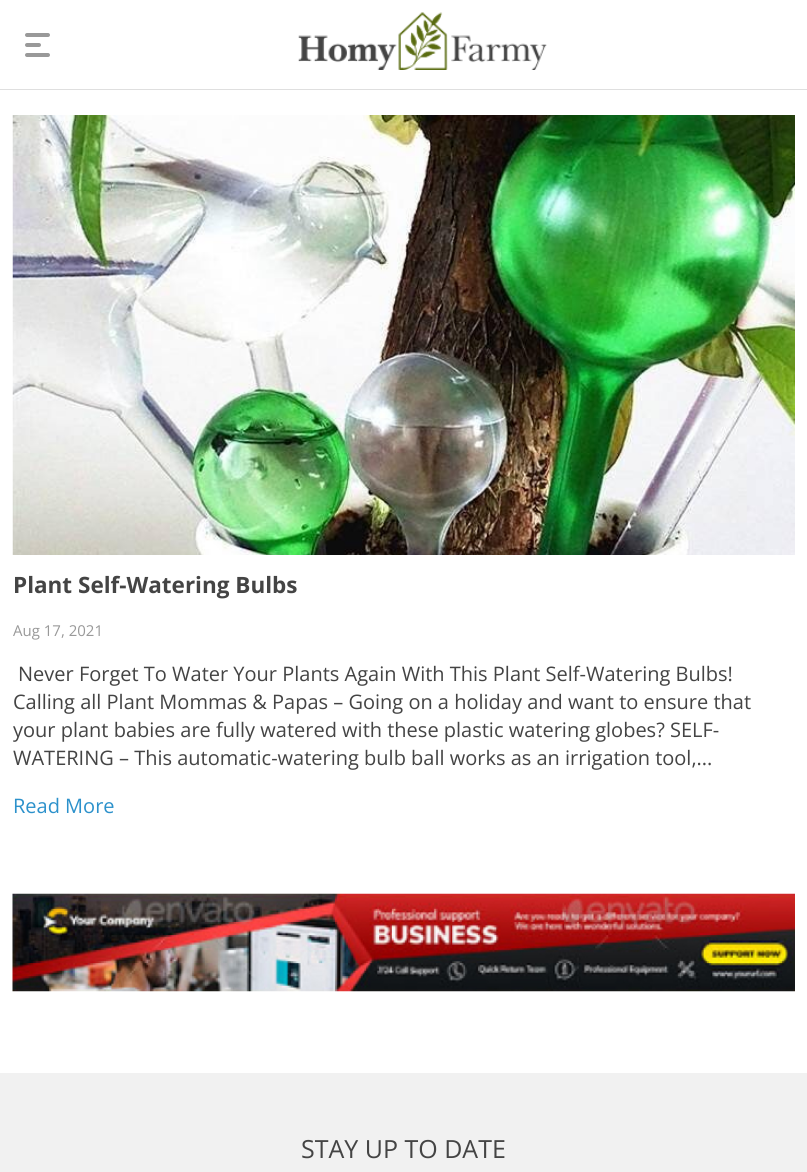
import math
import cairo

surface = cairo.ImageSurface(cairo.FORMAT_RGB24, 807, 1172)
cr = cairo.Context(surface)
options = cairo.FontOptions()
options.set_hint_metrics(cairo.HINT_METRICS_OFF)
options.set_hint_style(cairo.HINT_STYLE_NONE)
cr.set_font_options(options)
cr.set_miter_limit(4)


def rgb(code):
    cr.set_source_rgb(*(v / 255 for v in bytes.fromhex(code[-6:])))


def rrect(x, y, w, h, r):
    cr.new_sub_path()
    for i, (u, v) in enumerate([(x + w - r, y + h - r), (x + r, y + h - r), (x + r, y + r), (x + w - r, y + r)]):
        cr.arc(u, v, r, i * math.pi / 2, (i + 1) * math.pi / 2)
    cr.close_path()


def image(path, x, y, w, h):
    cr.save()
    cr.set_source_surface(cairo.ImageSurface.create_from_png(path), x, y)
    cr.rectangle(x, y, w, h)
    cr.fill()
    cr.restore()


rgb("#ffffff")
cr.paint()
rgb("#dfdfdf")
cr.rectangle(0, 89, 807, 1)
cr.fill()
rgb("#999999")
rrect(25, 33, 25, 4, 2)
cr.fill()
rrect(25, 43, 16, 4, 2)
cr.fill()
rrect(25, 53, 25, 4, 2)
cr.fill()
image("img/1.png", 298, 12, 249, 58)
image("img/2.png", 12, 115, 783, 440)
image("img/3.png", 12, 893, 783, 99)
rgb("#f1f1f1")
cr.rectangle(0, 1073, 807, 99)
cr.fill()
cr.select_font_face("Open Sans", cairo.FONT_SLANT_NORMAL, cairo.FONT_WEIGHT_BOLD)
cr.set_font_size(22.5)
rgb("#444444")
cr.move_to(13, 593)
cr.show_text("Plant Self-Watering Bulbs")
cr.select_font_face("Open Sans")
cr.set_font_size(15)
rgb("#999999")
cr.move_to(13, 636)
cr.show_text("Aug 17, 2021")
cr.set_font_size(20)
rgb("#444444")
cr.move_to(18, 681)
cr.show_text("Never Forget To Water Your Plants Again With This Plant Self-Watering Bulbs!")
cr.move_to(13, 709)
cr.show_text("Calling all Plant Mommas & Papas – Going on a holiday and want to ensure that")
cr.save()
cr.rectangle(13, 660, 782, 113)
cr.clip()
cr.move_to(13, 737)
cr.show_text("your plant babies are fully watered with these plastic watering globes? SELF-")
cr.restore()
cr.move_to(13, 765)
cr.show_text("WATERING – This automatic-watering bulb ball works as an irrigation tool,...")
rgb("#2c91cb")
cr.move_to(13, 813)
cr.show_text("Read More")
cr.set_font_size(25)
rgb("#444444")
cr.move_to(301, 1158)
cr.show_text("STAY UP TO DATE")
surface.write_to_png("page.png")
